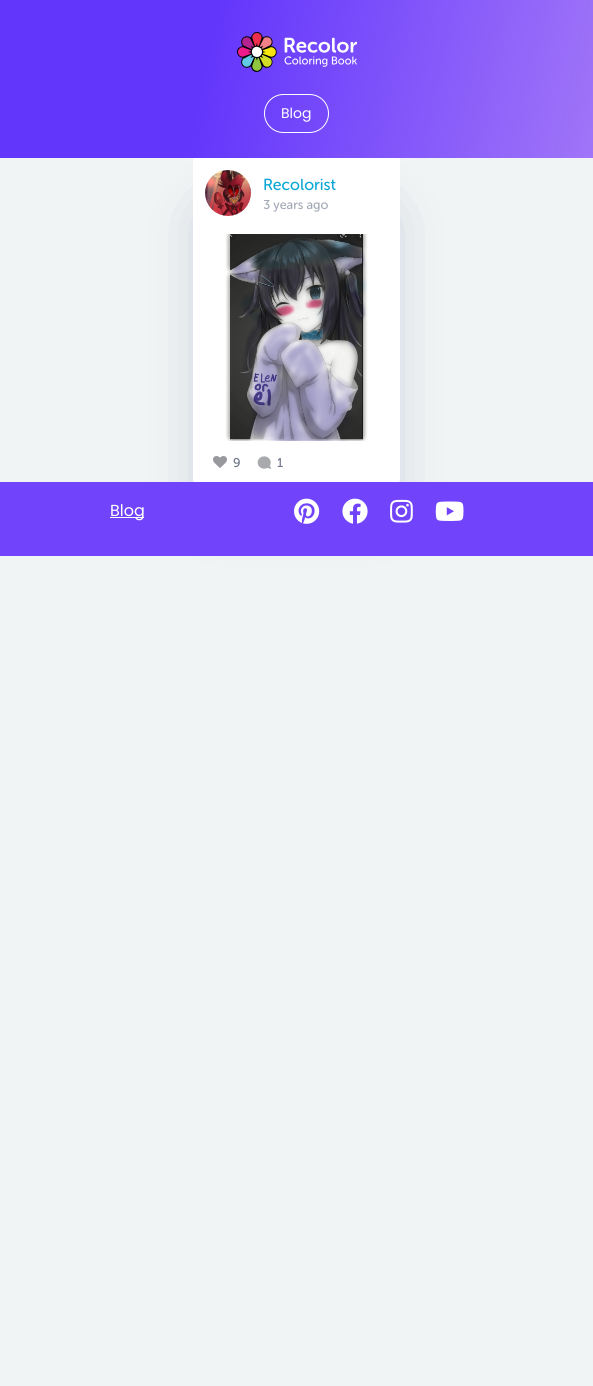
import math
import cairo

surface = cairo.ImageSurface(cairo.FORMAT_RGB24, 593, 1386)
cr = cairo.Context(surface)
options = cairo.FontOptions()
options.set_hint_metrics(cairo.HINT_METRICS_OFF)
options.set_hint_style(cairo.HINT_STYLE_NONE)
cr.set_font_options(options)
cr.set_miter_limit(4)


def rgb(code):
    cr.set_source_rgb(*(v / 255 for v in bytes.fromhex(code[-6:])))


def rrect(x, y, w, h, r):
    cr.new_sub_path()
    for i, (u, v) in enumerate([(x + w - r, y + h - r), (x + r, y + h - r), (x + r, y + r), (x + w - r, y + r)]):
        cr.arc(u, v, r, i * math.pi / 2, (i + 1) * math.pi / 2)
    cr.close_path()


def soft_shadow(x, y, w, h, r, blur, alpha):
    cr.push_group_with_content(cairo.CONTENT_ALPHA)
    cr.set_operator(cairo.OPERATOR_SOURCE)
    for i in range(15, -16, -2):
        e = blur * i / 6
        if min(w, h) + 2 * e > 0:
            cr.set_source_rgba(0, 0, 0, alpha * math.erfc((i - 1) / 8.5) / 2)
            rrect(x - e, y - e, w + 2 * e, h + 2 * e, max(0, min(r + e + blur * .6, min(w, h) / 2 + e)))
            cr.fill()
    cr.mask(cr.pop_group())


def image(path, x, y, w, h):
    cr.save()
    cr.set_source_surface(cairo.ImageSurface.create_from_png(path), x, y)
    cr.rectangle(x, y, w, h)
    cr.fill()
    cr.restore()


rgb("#f1f4f5")
cr.paint()
gradient = cairo.LinearGradient(-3.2, 15, 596, 143)
gradient.add_color_stop_rgba(0.35, 0.388, 0.212, 0.988, 1)
gradient.add_color_stop_rgba(1, 0.627, 0.459, 0.973, 1)
cr.set_source(gradient)
cr.rectangle(0, 0, 593, 158)
cr.fill()
image("img/1.png", 237, 32, 120, 40)
rgb("#0e3365")
soft_shadow(213, 218, 167, 284, 0, 30, 0.3)
rrect(264.5, 94.5, 64, 38, 19)
rgb("#ffffff")
cr.set_line_width(1)
cr.stroke()
rrect(193, 158, 207, 324, 2)
cr.fill()
image("img/2.png", 205, 170, 46, 46)
image("img/3.png", 225, 234, 143, 207)
image("img/4.png", 213, 456, 14, 12)
image("img/5.png", 257, 456, 14, 13)
rgb("#7144fb")
cr.rectangle(0, 482, 593, 74)
cr.fill()
rgb("#ffffff")
cr.rectangle(110, 517, 34, 1)
cr.fill()
image("img/6.png", 294, 498, 26, 26)
image("img/7.png", 342, 498, 26, 26)
image("img/8.png", 390, 499, 23, 24)
image("img/9.png", 435, 501, 29, 20)
cr.select_font_face("Poppins")
cr.set_font_size(14)
cr.move_to(281, 118)
cr.show_text("Blog")
cr.select_font_face("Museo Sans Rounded")
cr.set_font_size(16)
rgb("#0ba7d5")
cr.move_to(263, 190)
cr.show_text("Recolorist")
cr.set_font_size(12.75)
rgb("#a2a8b5")
cr.move_to(263, 209)
cr.show_text("3 years ago")
rgb("#6b7386")
cr.move_to(233, 467)
cr.show_text("9")
cr.move_to(277, 467)
cr.show_text("1")
cr.select_font_face("Poppins")
cr.set_font_size(16)
rgb("#ffffff")
cr.move_to(110, 516)
cr.show_text("Blog")
surface.write_to_png("page.png")
